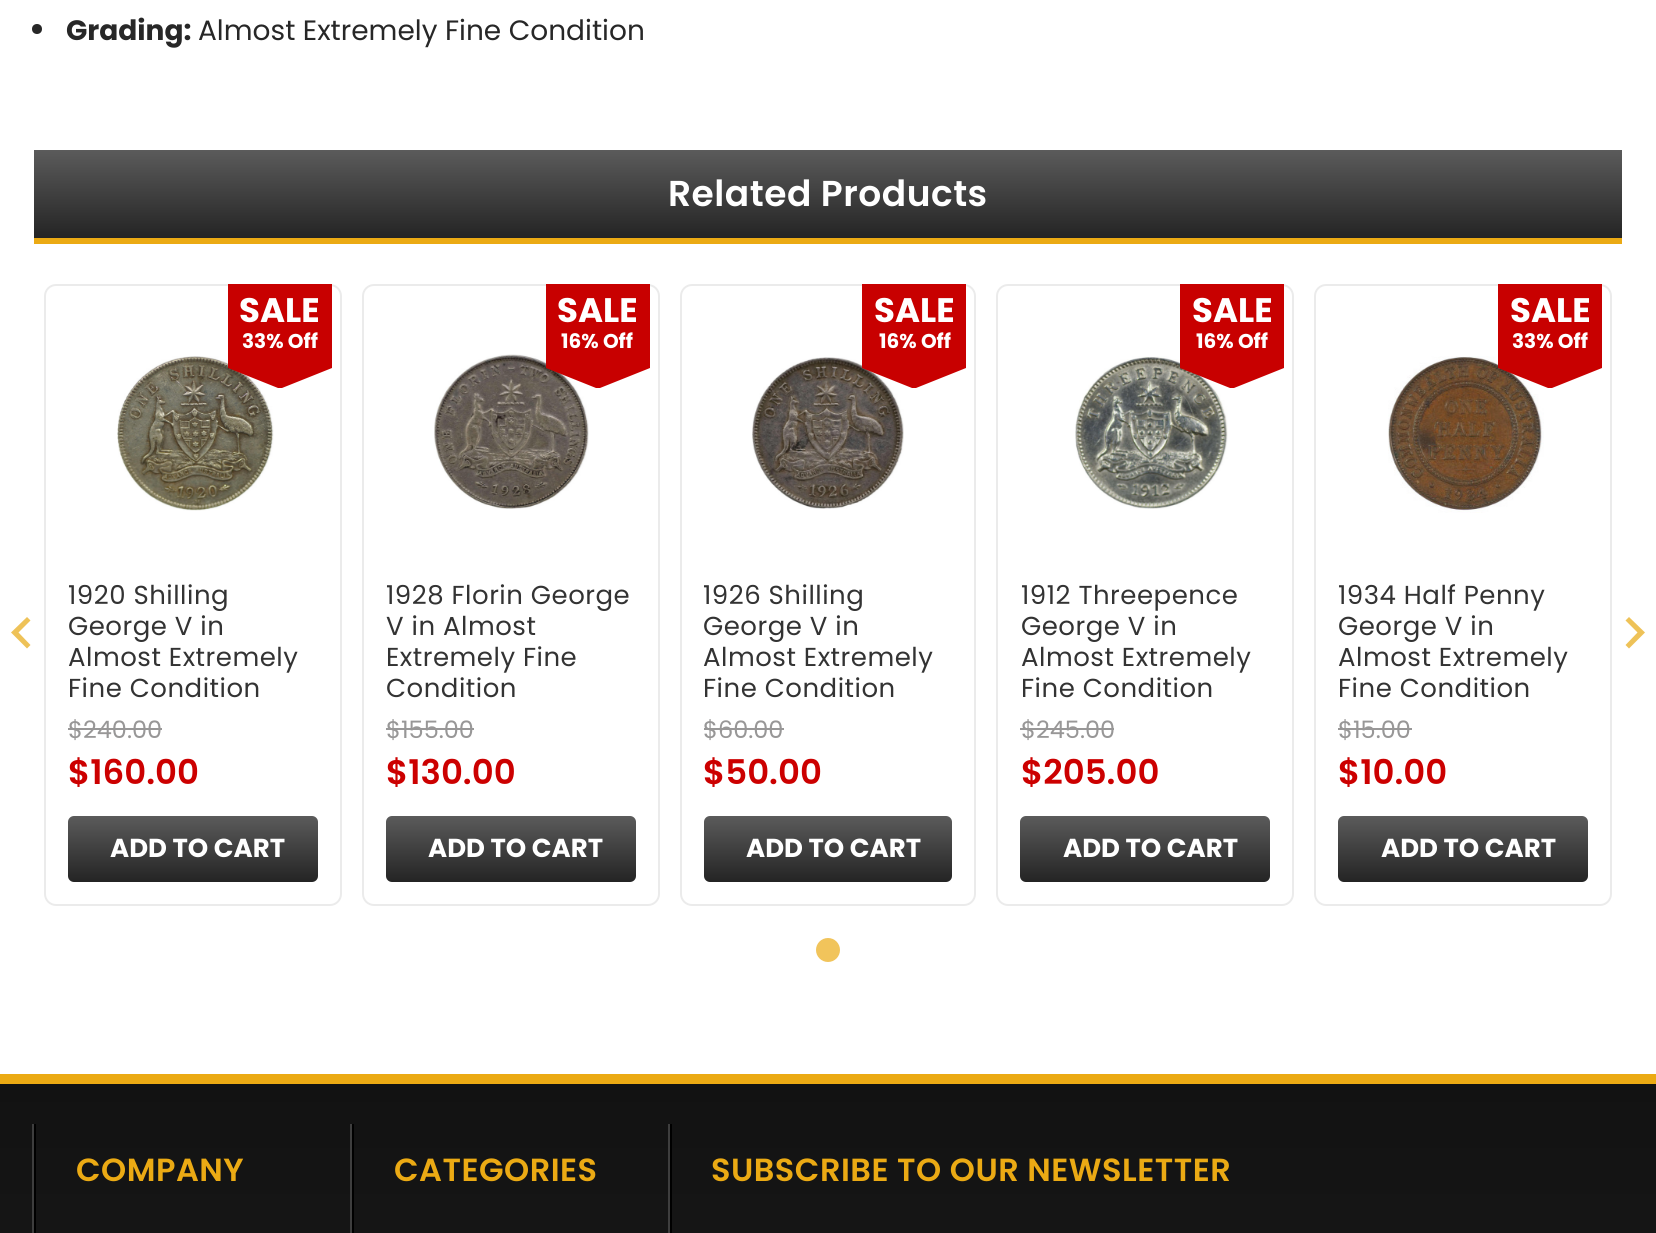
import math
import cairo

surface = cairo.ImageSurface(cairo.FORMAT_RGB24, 1656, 1233)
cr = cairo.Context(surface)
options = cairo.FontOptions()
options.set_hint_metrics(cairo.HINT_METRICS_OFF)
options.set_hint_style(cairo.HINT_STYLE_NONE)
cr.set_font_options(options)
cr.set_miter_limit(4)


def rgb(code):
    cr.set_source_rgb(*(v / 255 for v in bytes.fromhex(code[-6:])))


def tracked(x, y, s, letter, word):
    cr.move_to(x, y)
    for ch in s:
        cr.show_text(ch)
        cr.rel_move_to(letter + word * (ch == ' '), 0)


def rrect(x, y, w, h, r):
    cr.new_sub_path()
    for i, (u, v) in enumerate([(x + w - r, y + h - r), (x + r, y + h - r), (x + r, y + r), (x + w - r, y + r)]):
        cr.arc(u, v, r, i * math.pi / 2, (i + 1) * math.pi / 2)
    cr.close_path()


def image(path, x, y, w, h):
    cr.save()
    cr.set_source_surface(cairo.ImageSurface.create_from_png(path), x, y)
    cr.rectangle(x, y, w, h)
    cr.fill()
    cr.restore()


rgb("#ffffff")
cr.paint()
rgb("#272727")
cr.arc(37, 29, 5, 0, 2 * math.pi)
cr.fill()
gradient = cairo.LinearGradient(828, 150, 828, 238)
gradient.add_color_stop_rgba(0, 0.357, 0.357, 0.357, 1)
gradient.add_color_stop_rgba(1, 0.141, 0.141, 0.141, 1)
cr.set_source(gradient)
cr.rectangle(34, 150, 1588, 88)
cr.fill()
rgb("#ebaa14")
cr.rectangle(34, 238, 1588, 6)
cr.fill()
rrect(45, 285, 296, 620, 11)
rgb("#ebebeb")
cr.stroke()
image("img/1.png", 117, 356, 157, 155)
rgb("#c80000")
cr.rectangle(228, 284, 104, 84)
cr.fill()
cr.new_path()
cr.move_to(228, 368)
cr.line_to(332, 368)
cr.line_to(282, 388)
cr.line_to(278, 388)
cr.close_path()
cr.fill()
rgb("#989797")
cr.rectangle(68, 728, 94, 2)
cr.fill()
gradient = cairo.LinearGradient(193, 816, 193, 882)
gradient.add_color_stop_rgba(0, 0.357, 0.357, 0.357, 1)
gradient.add_color_stop_rgba(1, 0.141, 0.141, 0.141, 1)
cr.set_source(gradient)
rrect(68, 816, 250, 66, 6)
cr.fill()
rrect(363, 285, 296, 620, 11)
rgb("#ebebeb")
cr.stroke()
image("img/2.png", 434, 354, 155, 155)
rgb("#c80000")
cr.rectangle(546, 284, 104, 84)
cr.fill()
cr.new_path()
cr.move_to(546, 368)
cr.line_to(650, 368)
cr.line_to(600, 388)
cr.line_to(596, 388)
cr.close_path()
cr.fill()
rgb("#989797")
cr.rectangle(386, 728, 88, 2)
cr.fill()
gradient = cairo.LinearGradient(511, 816, 511, 882)
gradient.add_color_stop_rgba(0, 0.357, 0.357, 0.357, 1)
gradient.add_color_stop_rgba(1, 0.141, 0.141, 0.141, 1)
cr.set_source(gradient)
rrect(386, 816, 250, 66, 6)
cr.fill()
rrect(681, 285, 294, 620, 11)
rgb("#ebebeb")
cr.stroke()
image("img/3.png", 752, 357, 152, 152)
rgb("#c80000")
cr.rectangle(862, 284, 104, 84)
cr.fill()
cr.new_path()
cr.move_to(862, 368)
cr.line_to(966, 368)
cr.line_to(916, 388)
cr.line_to(912, 388)
cr.close_path()
cr.fill()
rgb("#989797")
cr.rectangle(704, 728, 80, 2)
cr.fill()
gradient = cairo.LinearGradient(828, 816, 828, 882)
gradient.add_color_stop_rgba(0, 0.357, 0.357, 0.357, 1)
gradient.add_color_stop_rgba(1, 0.141, 0.141, 0.141, 1)
cr.set_source(gradient)
rrect(704, 816, 248, 66, 6)
cr.fill()
rrect(997, 285, 296, 620, 11)
rgb("#ebebeb")
cr.stroke()
image("img/4.png", 1075, 356, 153, 153)
rgb("#c80000")
cr.rectangle(1180, 284, 104, 84)
cr.fill()
cr.new_path()
cr.move_to(1180, 368)
cr.line_to(1284, 368)
cr.line_to(1234, 388)
cr.line_to(1230, 388)
cr.close_path()
cr.fill()
rgb("#989797")
cr.rectangle(1020, 728, 94, 2)
cr.fill()
gradient = cairo.LinearGradient(1145, 816, 1145, 882)
gradient.add_color_stop_rgba(0, 0.357, 0.357, 0.357, 1)
gradient.add_color_stop_rgba(1, 0.141, 0.141, 0.141, 1)
cr.set_source(gradient)
rrect(1020, 816, 250, 66, 6)
cr.fill()
rrect(1315, 285, 296, 620, 11)
rgb("#ebebeb")
cr.stroke()
image("img/5.png", 1388, 356, 156, 157)
rgb("#c80000")
cr.rectangle(1498, 284, 104, 84)
cr.fill()
cr.new_path()
cr.move_to(1498, 368)
cr.line_to(1602, 368)
cr.line_to(1552, 388)
cr.line_to(1548, 388)
cr.close_path()
cr.fill()
rgb("#989797")
cr.rectangle(1338, 728, 74, 2)
cr.fill()
gradient = cairo.LinearGradient(1463, 816, 1463, 882)
gradient.add_color_stop_rgba(0, 0.357, 0.357, 0.357, 1)
gradient.add_color_stop_rgba(1, 0.141, 0.141, 0.141, 1)
cr.set_source(gradient)
rrect(1338, 816, 250, 66, 6)
cr.fill()
rgb("#eec258")
cr.new_path()
cr.move_to(27, 617)
cr.line_to(30.5, 620.5)
cr.line_to(18.5, 632.5)
cr.line_to(30.5, 645)
cr.line_to(27, 648.5)
cr.line_to(11, 632.5)
cr.close_path()
cr.fill()
cr.new_path()
cr.move_to(1629, 617)
cr.line_to(1625.5, 620.5)
cr.line_to(1637.5, 632.5)
cr.line_to(1625.5, 645)
cr.line_to(1629, 648.5)
cr.line_to(1645, 632.5)
cr.close_path()
cr.fill()
rgb("#f1c45b")
cr.arc(828, 950, 12, 0, 2 * math.pi)
cr.fill()
gradient = cairo.LinearGradient(828, 1084, 828, 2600)
gradient.add_color_stop_rgba(0, 0.071, 0.071, 0.071, 1)
gradient.add_color_stop_rgba(1, 0.2, 0.2, 0.2, 1)
cr.set_source(gradient)
cr.rectangle(0, 1084, 1656, 149)
cr.fill()
for x, y, w, h, color in [
    (0, 1074, 1656, 10, "#ebaa14"),
    (34, 1124, 2, 109, "#000000"),
    (32, 1124, 2, 109, "#3e3e3e"),
    (352, 1124, 2, 109, "#000000"),
    (350, 1124, 2, 109, "#3e3e3e"),
    (670, 1124, 2, 109, "#000000"),
    (668, 1124, 2, 109, "#3e3e3e"),
]:
    rgb(color)
    cr.rectangle(x, y, w, h)
    cr.fill()
cr.select_font_face("Poppins", cairo.FONT_SLANT_NORMAL, cairo.FONT_WEIGHT_BOLD)
cr.set_font_size(28)
rgb("#272727")
cr.move_to(66, 40)
cr.show_text("Grading:")
cr.select_font_face("Poppins")
cr.move_to(198, 40)
cr.show_text("Almost Extremely Fine Condition")
cr.select_font_face("Poppins SemiBold")
cr.set_font_size(36)
rgb("#ffffff")
tracked(668, 206, "Related Products", 0.5, 0)
cr.select_font_face("Poppins", cairo.FONT_SLANT_NORMAL, cairo.FONT_WEIGHT_BOLD)
cr.set_font_size(34)
cr.move_to(239, 322)
cr.show_text("SALE")
cr.set_font_size(20)
cr.move_to(242, 348)
cr.show_text("33% Off")
cr.select_font_face("Poppins")
cr.set_font_size(26)
rgb("#333333")
for x, y, s in [
    (68, 604, "1920 Shilling"),
    (68, 635, "George V in"),
    (68, 666, "Almost Extremely"),
    (68, 697, "Fine Condition"),
]:
    tracked(x, y, s, 0.5, 0)
cr.set_font_size(24)
rgb("#989797")
cr.move_to(68, 738)
cr.show_text("$240.00")
cr.select_font_face("Poppins SemiBold")
cr.set_font_size(34)
rgb("#cc0000")
cr.move_to(68, 784)
cr.show_text("$160.00")
cr.select_font_face("Poppins", cairo.FONT_SLANT_NORMAL, cairo.FONT_WEIGHT_BOLD)
cr.set_font_size(26)
rgb("#ffffff")
cr.move_to(110, 857)
cr.show_text("ADD TO CART")
cr.set_font_size(34)
cr.move_to(557, 322)
cr.show_text("SALE")
cr.set_font_size(20)
cr.move_to(561, 348)
cr.show_text("16% Off")
cr.select_font_face("Poppins")
cr.set_font_size(26)
rgb("#333333")
for x, y, s in [
    (386, 604, "1928 Florin George"),
    (386, 635, "V in Almost"),
    (386, 666, "Extremely Fine"),
    (386, 697, "Condition"),
]:
    tracked(x, y, s, 0.5, 0)
cr.set_font_size(24)
rgb("#989797")
cr.move_to(386, 738)
cr.show_text("$155.00")
cr.select_font_face("Poppins SemiBold")
cr.set_font_size(34)
rgb("#cc0000")
cr.move_to(386, 784)
cr.show_text("$130.00")
cr.select_font_face("Poppins", cairo.FONT_SLANT_NORMAL, cairo.FONT_WEIGHT_BOLD)
cr.set_font_size(26)
rgb("#ffffff")
cr.move_to(428, 857)
cr.show_text("ADD TO CART")
cr.set_font_size(34)
cr.move_to(874, 322)
cr.show_text("SALE")
cr.set_font_size(20)
cr.move_to(879, 348)
cr.show_text("16% Off")
cr.select_font_face("Poppins")
cr.set_font_size(26)
rgb("#333333")
for x, y, s in [
    (703, 604, "1926 Shilling"),
    (703, 635, "George V in"),
    (703, 666, "Almost Extremely"),
    (703, 697, "Fine Condition"),
]:
    tracked(x, y, s, 0.5, 0)
cr.set_font_size(24)
rgb("#989797")
cr.move_to(703, 738)
cr.show_text("$60.00")
cr.select_font_face("Poppins SemiBold")
cr.set_font_size(34)
rgb("#cc0000")
cr.move_to(703, 784)
cr.show_text("$50.00")
cr.select_font_face("Poppins", cairo.FONT_SLANT_NORMAL, cairo.FONT_WEIGHT_BOLD)
cr.set_font_size(26)
rgb("#ffffff")
cr.move_to(746, 857)
cr.show_text("ADD TO CART")
cr.set_font_size(34)
cr.move_to(1192, 322)
cr.show_text("SALE")
cr.set_font_size(20)
cr.move_to(1196, 348)
cr.show_text("16% Off")
cr.select_font_face("Poppins")
cr.set_font_size(26)
rgb("#333333")
for x, y, s in [
    (1021, 604, "1912 Threepence"),
    (1021, 635, "George V in"),
    (1021, 666, "Almost Extremely"),
    (1021, 697, "Fine Condition"),
]:
    tracked(x, y, s, 0.5, 0)
cr.set_font_size(24)
rgb("#989797")
cr.move_to(1021, 738)
cr.show_text("$245.00")
cr.select_font_face("Poppins SemiBold")
cr.set_font_size(34)
rgb("#cc0000")
cr.move_to(1021, 784)
cr.show_text("$205.00")
cr.select_font_face("Poppins", cairo.FONT_SLANT_NORMAL, cairo.FONT_WEIGHT_BOLD)
cr.set_font_size(26)
rgb("#ffffff")
cr.move_to(1063, 857)
cr.show_text("ADD TO CART")
cr.set_font_size(34)
cr.move_to(1510, 322)
cr.show_text("SALE")
cr.set_font_size(20)
cr.move_to(1512, 348)
cr.show_text("33% Off")
cr.select_font_face("Poppins")
cr.set_font_size(26)
rgb("#333333")
for x, y, s in [
    (1338, 604, "1934 Half Penny"),
    (1338, 635, "George V in"),
    (1338, 666, "Almost Extremely"),
    (1338, 697, "Fine Condition"),
]:
    tracked(x, y, s, 0.5, 0)
cr.set_font_size(24)
rgb("#989797")
cr.move_to(1338, 738)
cr.show_text("$15.00")
cr.select_font_face("Poppins SemiBold")
cr.set_font_size(34)
rgb("#cc0000")
cr.move_to(1338, 784)
cr.show_text("$10.00")
cr.select_font_face("Poppins", cairo.FONT_SLANT_NORMAL, cairo.FONT_WEIGHT_BOLD)
cr.set_font_size(26)
rgb("#ffffff")
cr.move_to(1381, 857)
cr.show_text("ADD TO CART")
cr.select_font_face("Poppins SemiBold")
cr.set_font_size(32)
rgb("#ebaa14")
for x, y, s in [
    (76, 1181, "COMPANY"),
    (394, 1181, "CATEGORIES"),
    (711, 1181, "SUBSCRIBE TO OUR NEWSLETTER"),
]:
    tracked(x, y, s, 0.5, 0)
surface.write_to_png("page.png")
